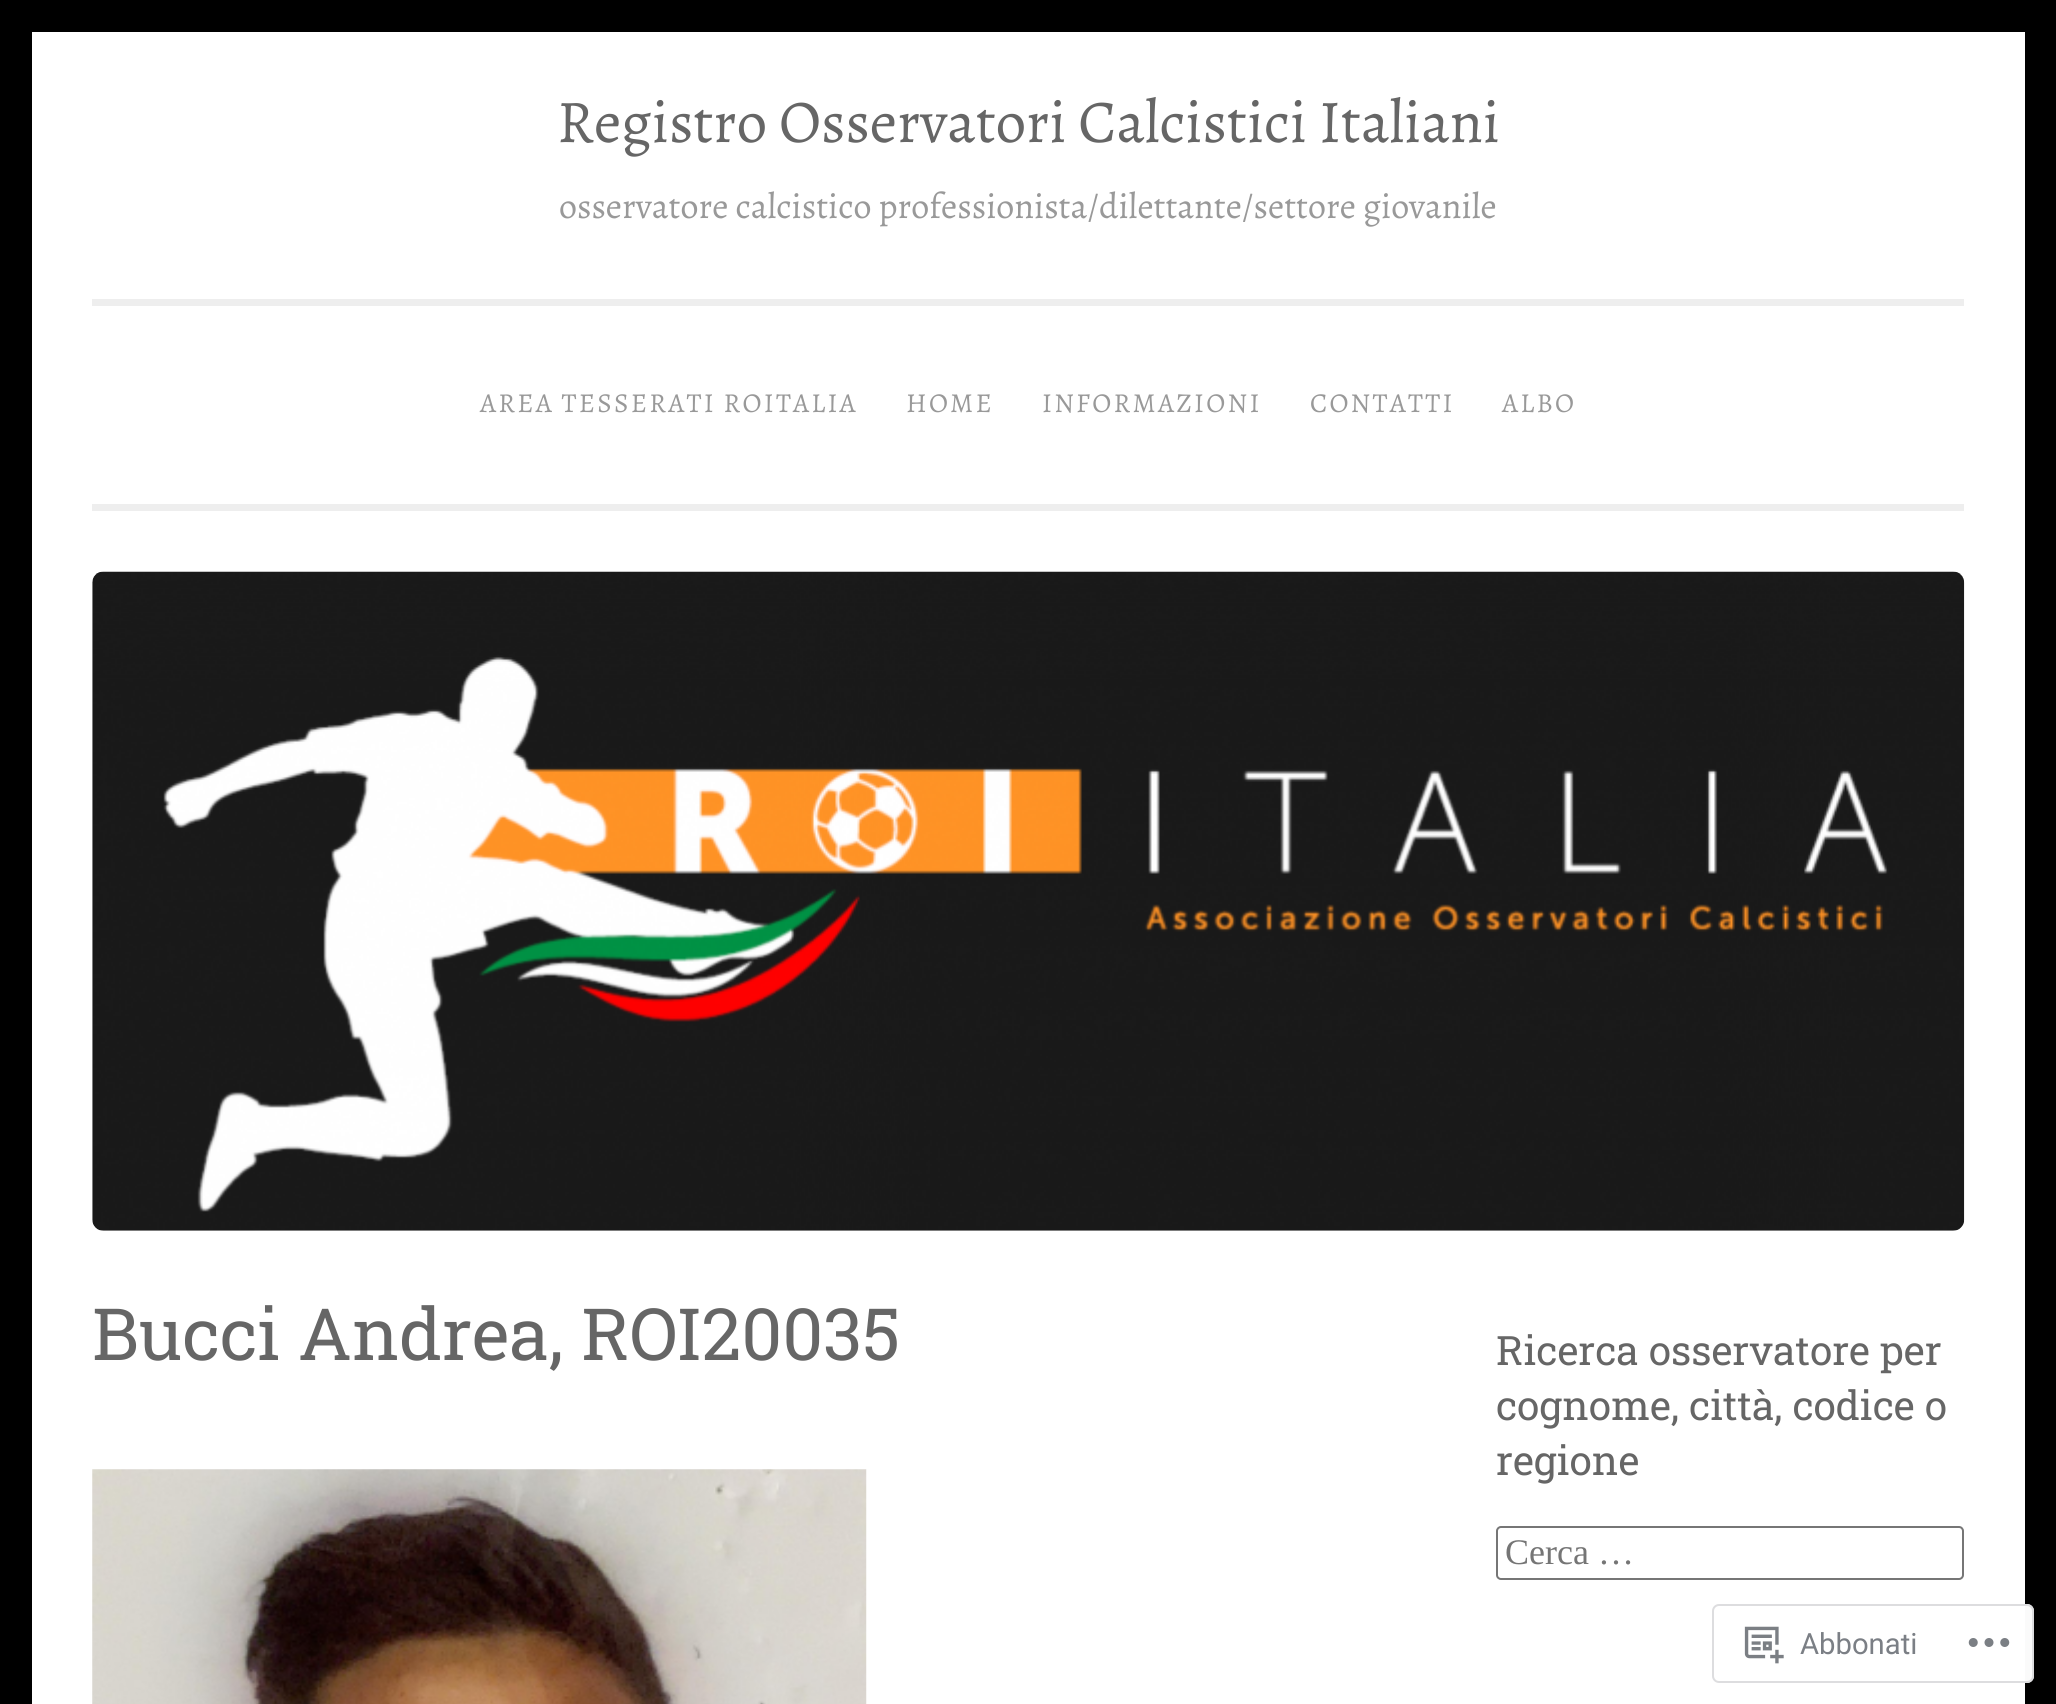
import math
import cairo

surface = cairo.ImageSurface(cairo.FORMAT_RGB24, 2056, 1704)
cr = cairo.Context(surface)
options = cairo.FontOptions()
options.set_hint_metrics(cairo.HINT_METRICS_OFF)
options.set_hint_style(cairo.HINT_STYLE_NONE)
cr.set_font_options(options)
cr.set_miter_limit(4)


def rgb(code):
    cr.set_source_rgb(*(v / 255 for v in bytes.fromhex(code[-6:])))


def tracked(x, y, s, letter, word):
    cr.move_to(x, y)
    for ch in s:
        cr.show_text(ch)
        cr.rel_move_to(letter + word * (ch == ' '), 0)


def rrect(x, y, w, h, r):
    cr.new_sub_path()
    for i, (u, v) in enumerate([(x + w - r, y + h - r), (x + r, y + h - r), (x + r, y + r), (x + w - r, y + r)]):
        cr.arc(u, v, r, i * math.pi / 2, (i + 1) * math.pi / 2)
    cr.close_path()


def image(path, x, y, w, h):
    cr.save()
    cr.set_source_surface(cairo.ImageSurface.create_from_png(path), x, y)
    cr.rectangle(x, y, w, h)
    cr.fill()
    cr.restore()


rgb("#000000")
cr.paint()
for x, y, w, h, color in [
    (32, 32, 1993, 1672, "#ffffff"),
    (92, 504, 1872, 7, "#eeeeee"),
    (92, 299, 1872, 7, "#eeeeee"),
]:
    rgb(color)
    cr.rectangle(x, y, w, h)
    cr.fill()
image("img/1.png", 92, 571, 1873, 660)
image("img/2.png", 92, 1469, 775, 235)
rrect(1497, 1527, 466, 52, 4)
rgb("#767676")
cr.stroke()
cr.set_source_rgba(1, 1, 1, 0.98)
rrect(1712, 1604, 322, 79, 7)
cr.fill()
rrect(1713, 1605, 320, 77, 6)
cr.set_source_rgba(0.863, 0.863, 0.871, 0.98)
cr.stroke()
image("img/3.png", 1744, 1626, 40, 38)
image("img/4.png", 1968, 1638, 42, 9)
cr.select_font_face("Alegreya")
cr.set_font_size(60.75)
rgb("#666666")
cr.move_to(557, 142)
cr.show_text("Registro Osservatori Calcistici Italiani")
cr.set_font_size(36)
rgb("#999999")
cr.move_to(559, 218)
cr.show_text("osservatore calcistico professionista/dilettante/settore giovanile")
cr.set_font_size(27.4)
for x, y, s in [
    (480, 412, "AREA TESSERATI ROITALIA"),
    (906, 412, "HOME"),
    (1042, 412, "INFORMAZIONI"),
    (1310, 412, "CONTATTI"),
    (1502, 412, "ALBO"),
]:
    tracked(x, y, s, 2.25, 0)
cr.select_font_face("Roboto Slab")
cr.set_font_size(72)
rgb("#666666")
cr.move_to(92, 1360)
cr.show_text("Bucci Andrea, ROI20035")
cr.set_font_size(40.5)
for x, y, s in [
    (1496, 1365, "Ricerca osservatore per"),
    (1496, 1420, "cognome, città, codice o"),
    (1496, 1475, "regione"),
]:
    cr.move_to(x, y)
    cr.show_text(s)
cr.select_font_face("Liberation Serif")
cr.set_font_size(36)
rgb("#757575")
cr.move_to(1505, 1564)
cr.show_text("Cerca …")
cr.select_font_face("Roboto")
cr.set_font_size(29.25)
rgb("#7b7f85")
cr.move_to(1800, 1654)
cr.show_text("Abbonati")
surface.write_to_png("page.png")
